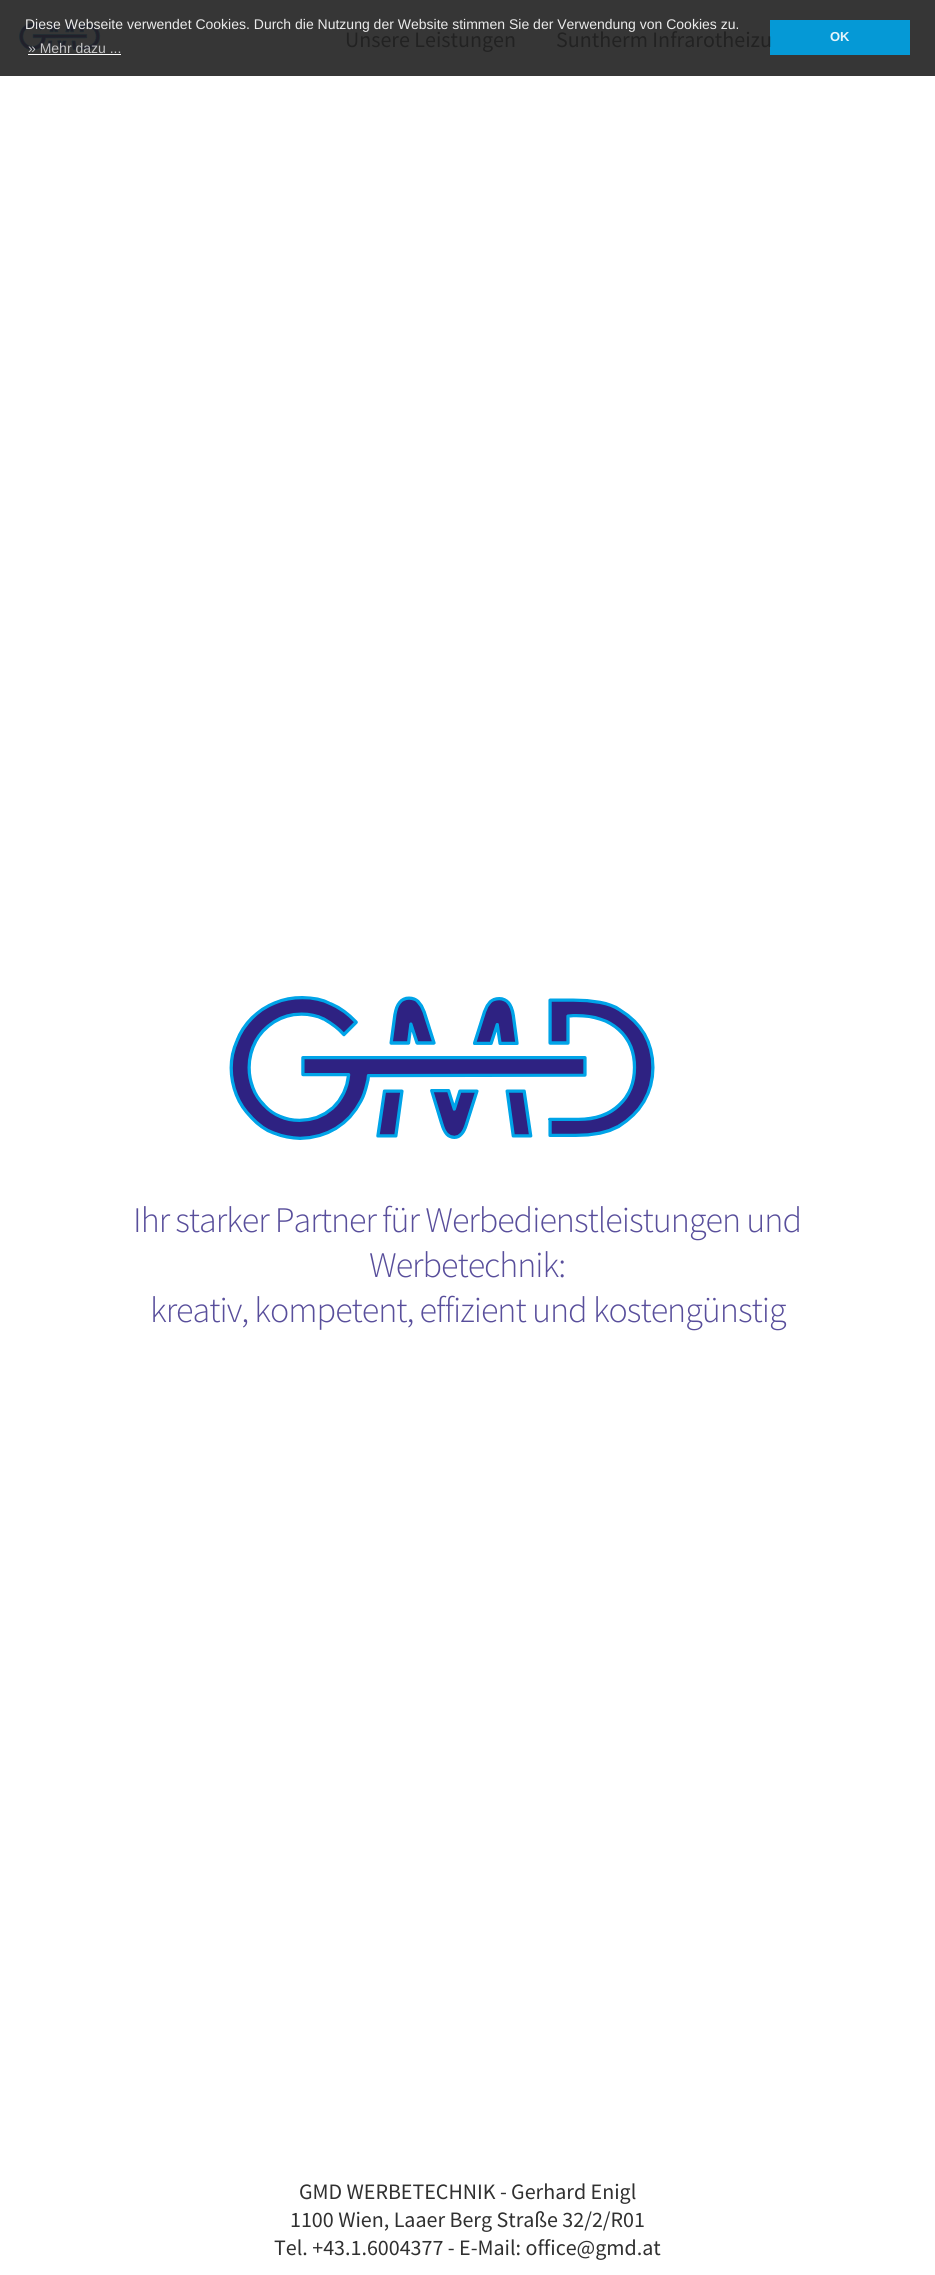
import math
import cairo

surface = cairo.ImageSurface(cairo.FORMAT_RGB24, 935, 2275)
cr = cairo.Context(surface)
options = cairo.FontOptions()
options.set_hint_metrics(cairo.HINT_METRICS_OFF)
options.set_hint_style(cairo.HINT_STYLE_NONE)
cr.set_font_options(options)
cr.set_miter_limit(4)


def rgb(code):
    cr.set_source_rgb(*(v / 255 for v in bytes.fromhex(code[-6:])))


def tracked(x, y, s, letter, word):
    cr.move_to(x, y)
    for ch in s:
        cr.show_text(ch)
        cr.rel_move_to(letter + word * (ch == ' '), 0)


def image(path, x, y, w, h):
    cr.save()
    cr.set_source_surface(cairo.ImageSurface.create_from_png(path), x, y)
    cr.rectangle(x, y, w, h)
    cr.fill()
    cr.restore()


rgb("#ffffff")
cr.paint()
rgb("#363636")
cr.rectangle(0, 0, 935, 76)
cr.fill()
rgb("#ffffff")
cr.rectangle(28, 54, 93, 1)
cr.fill()
cr.set_source_rgba(0, 0.643, 0.91, 0.9)
cr.rectangle(770, 20, 140, 35)
cr.fill()
image("img/1.png", 19, 22, 82, 29)
image("img/2.png", 229, 996, 426, 144)
cr.select_font_face("Liberation Sans")
cr.set_font_size(14)
rgb("#ebebeb")
cr.move_to(25, 29)
cr.show_text("Diese Webseite verwendet Cookies. Durch die Nutzung der Website stimmen Sie der Verwendung von Cookies zu.")
rgb("#c5c5c6")
cr.move_to(28, 53)
cr.show_text("» Mehr dazu ...")
cr.select_font_face("Liberation Sans", cairo.FONT_SLANT_NORMAL, cairo.FONT_WEIGHT_BOLD)
cr.set_font_size(13)
rgb("#e6f5fb")
cr.move_to(830, 41)
cr.show_text("OK")
cr.select_font_face("Source Sans Pro")
cr.set_font_size(22)
rgb("#222222")
cr.move_to(345, 47)
cr.show_text("Unsere Leistungen")
cr.move_to(556, 47)
cr.show_text("Suntherm Infrarotheizu")
cr.select_font_face("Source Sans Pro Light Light")
cr.set_font_size(36)
rgb("#584e9b")
for x, y, s in [
    (133, 1232, "Ihr starker Partner für Werbedienstleistungen und"),
    (369, 1277, "Werbetechnik:"),
    (150, 1322, "kreativ, kompetent, effizient und kostengünstig"),
]:
    tracked(x, y, s, -1, 0)
cr.select_font_face("Source Sans Pro")
cr.set_font_size(22)
rgb("#303030")
for x, y, s in [
    (299, 2199, "GMD WERBETECHNIK - Gerhard Enigl"),
    (290, 2227, "1100 Wien, Laaer Berg Straße 32/2/R01"),
    (274, 2255, "Tel. +43.1.6004377 - E-Mail: office@gmd.at"),
]:
    cr.move_to(x, y)
    cr.show_text(s)
surface.write_to_png("page.png")
